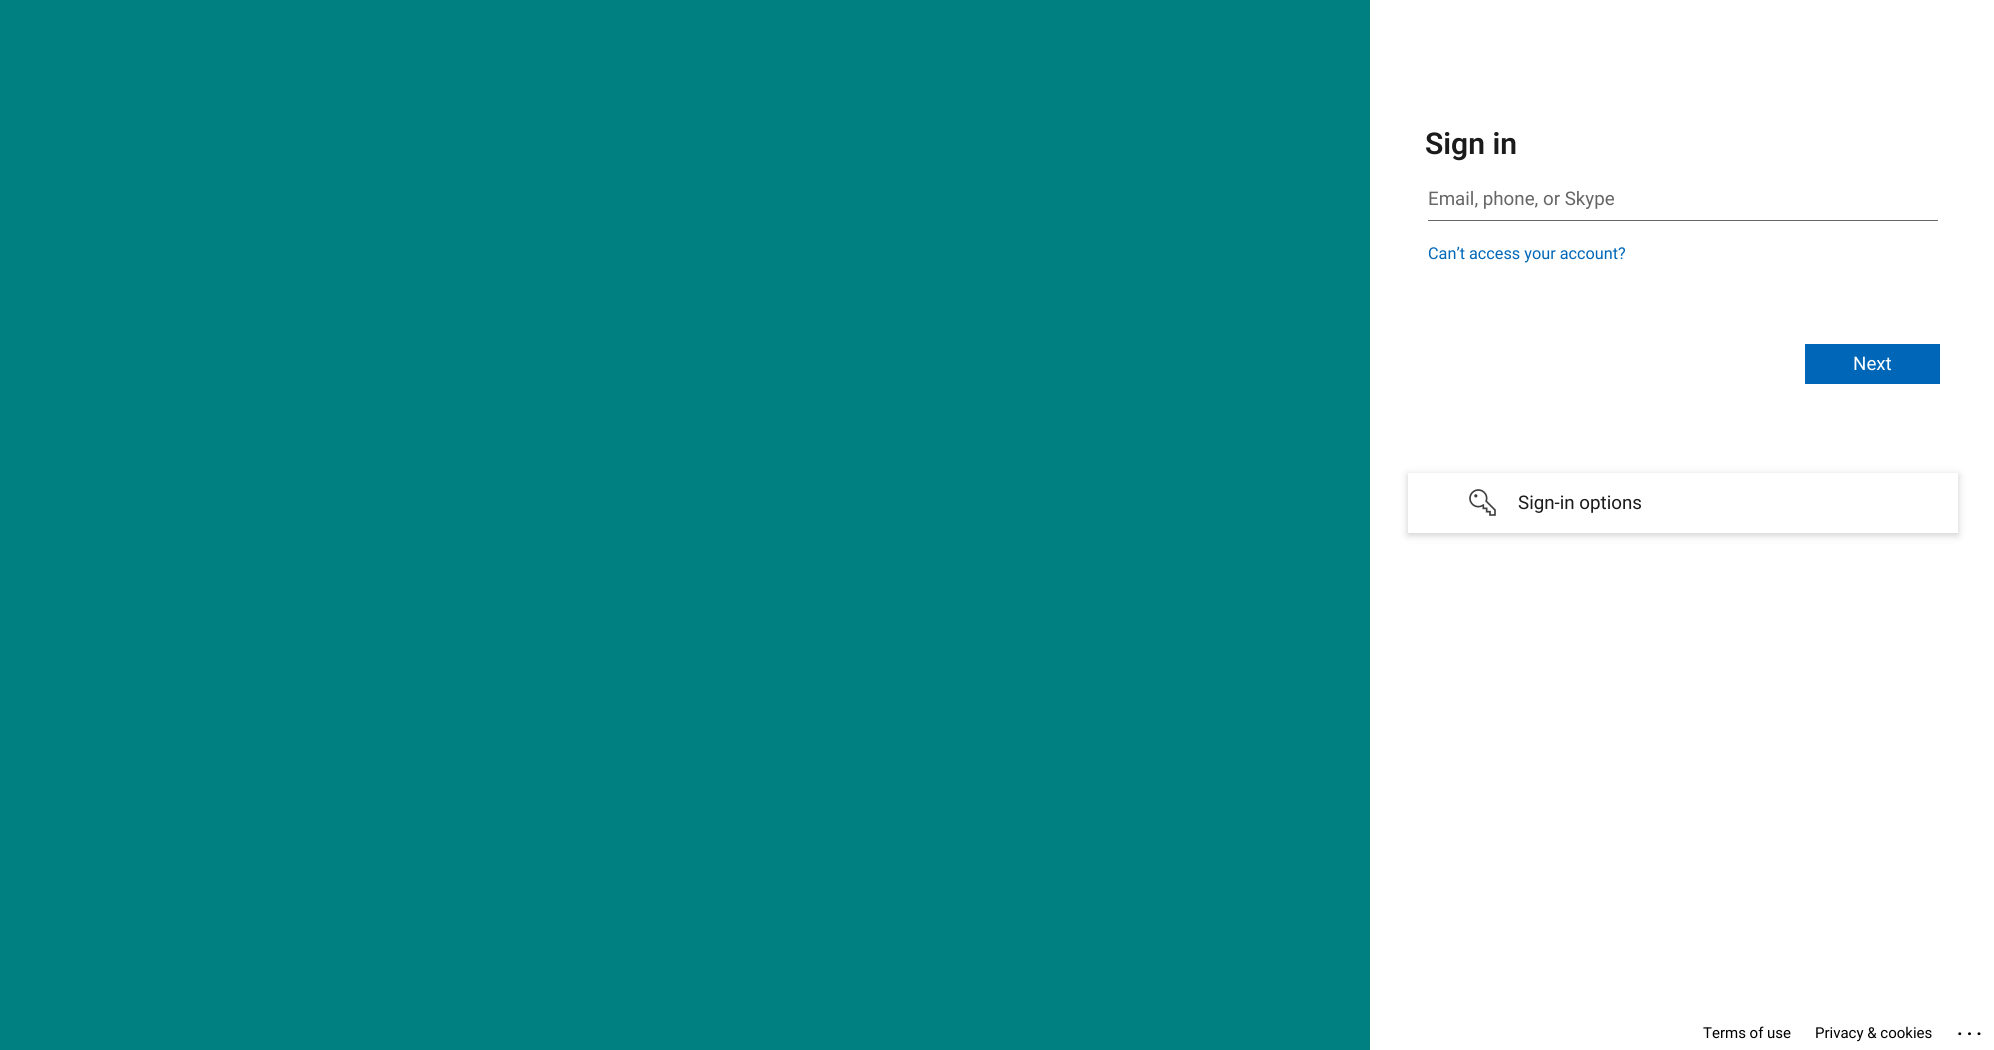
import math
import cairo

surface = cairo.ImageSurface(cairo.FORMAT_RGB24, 1994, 1050)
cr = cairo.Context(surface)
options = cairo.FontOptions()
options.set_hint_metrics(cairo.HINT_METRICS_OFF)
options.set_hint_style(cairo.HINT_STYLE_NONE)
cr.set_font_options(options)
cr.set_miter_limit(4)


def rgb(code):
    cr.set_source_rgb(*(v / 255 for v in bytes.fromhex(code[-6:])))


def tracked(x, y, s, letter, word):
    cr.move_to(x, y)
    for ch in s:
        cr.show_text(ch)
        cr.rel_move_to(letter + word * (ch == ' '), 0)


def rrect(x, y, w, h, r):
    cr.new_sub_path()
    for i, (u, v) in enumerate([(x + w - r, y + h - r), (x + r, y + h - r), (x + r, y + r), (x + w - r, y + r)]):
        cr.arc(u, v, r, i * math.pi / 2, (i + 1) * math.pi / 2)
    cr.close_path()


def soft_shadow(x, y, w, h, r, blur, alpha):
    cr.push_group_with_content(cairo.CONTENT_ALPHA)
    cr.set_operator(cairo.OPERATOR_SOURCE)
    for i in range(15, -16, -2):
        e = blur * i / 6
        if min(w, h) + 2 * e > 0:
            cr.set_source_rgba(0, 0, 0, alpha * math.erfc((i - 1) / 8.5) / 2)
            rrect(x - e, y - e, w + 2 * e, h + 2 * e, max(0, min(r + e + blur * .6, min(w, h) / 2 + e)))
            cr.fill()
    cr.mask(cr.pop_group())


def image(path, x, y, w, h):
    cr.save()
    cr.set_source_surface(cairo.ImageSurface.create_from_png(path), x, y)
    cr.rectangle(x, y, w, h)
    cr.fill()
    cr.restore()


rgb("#ffffff")
cr.paint()
for x, y, w, h, color in [
    (0, 0, 1370, 1050, "#008080"),
    (1428, 220, 510, 1, "#666666"),
    (1805, 344, 135, 40, "#0067b8"),
]:
    rgb(color)
    cr.rectangle(x, y, w, h)
    cr.fill()
rgb("#000000")
soft_shadow(1408, 475, 550, 60, 0, 4, 0.2)
rgb("#ffffff")
cr.rectangle(1408, 473, 550, 60)
cr.fill()
image("img/1.png", 1469, 489, 27, 27)
cr.select_font_face("Roboto SemiBold")
cr.set_font_size(30)
rgb("#1b1b1b")
cr.move_to(1425, 154)
cr.show_text("Sign in")
cr.select_font_face("Roboto")
cr.set_font_size(18.75)
rgb("#666666")
cr.move_to(1428, 205)
cr.show_text("Email, phone, or Skype")
cr.set_font_size(16.25)
rgb("#0067b8")
cr.move_to(1428, 259)
cr.show_text("Can’t access your account?")
cr.set_font_size(18.75)
rgb("#ffffff")
cr.move_to(1853, 370)
cr.show_text("Next")
rgb("#1b1b1b")
cr.move_to(1518, 509)
cr.show_text("Sign-in options")
cr.set_font_size(15)
rgb("#000000")
cr.move_to(1703, 1038)
cr.show_text("Terms of use")
cr.move_to(1815, 1038)
cr.show_text("Privacy & cookies")
cr.select_font_face("Roboto SemiBold")
cr.set_font_size(20)
tracked(1957, 1035, "...", 4, 0)
surface.write_to_png("page.png")
